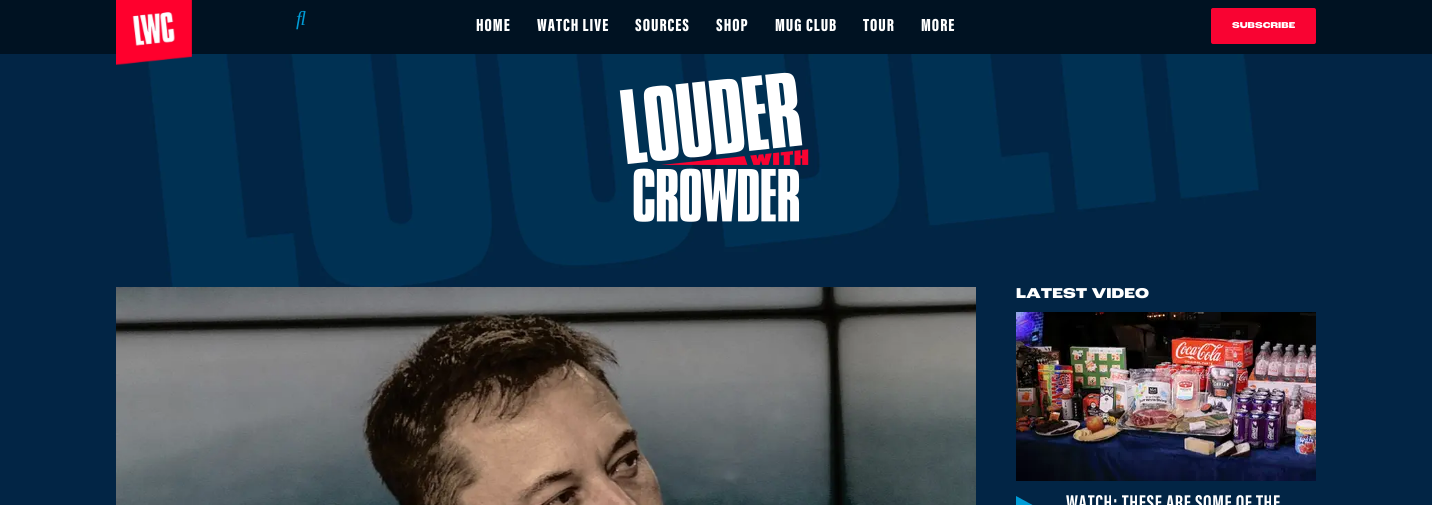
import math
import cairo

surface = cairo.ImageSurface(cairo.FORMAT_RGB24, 1432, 505)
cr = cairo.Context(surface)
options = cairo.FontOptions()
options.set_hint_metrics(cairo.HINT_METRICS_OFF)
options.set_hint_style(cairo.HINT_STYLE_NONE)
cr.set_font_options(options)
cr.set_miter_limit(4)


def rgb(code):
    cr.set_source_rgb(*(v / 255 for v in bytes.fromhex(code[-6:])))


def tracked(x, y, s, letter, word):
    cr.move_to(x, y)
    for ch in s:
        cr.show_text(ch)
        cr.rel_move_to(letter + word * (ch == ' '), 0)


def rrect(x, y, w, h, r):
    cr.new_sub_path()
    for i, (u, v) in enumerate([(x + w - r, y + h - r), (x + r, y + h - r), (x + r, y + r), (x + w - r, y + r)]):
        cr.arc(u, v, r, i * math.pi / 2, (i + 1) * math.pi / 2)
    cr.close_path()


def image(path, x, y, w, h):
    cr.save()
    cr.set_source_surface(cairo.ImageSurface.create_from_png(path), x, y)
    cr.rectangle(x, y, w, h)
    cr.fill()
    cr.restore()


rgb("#ffffff")
cr.paint()
rgb("#001222")
cr.rectangle(0, 0, 1432, 54)
cr.fill()
image("img/3.png", 0, 54, 1432, 451)
image("img/1.png", 116, 0, 76, 65)
image("img/2.png", 296, 10, 10, 20)
rgb("#f90332")
rrect(1212, 9, 103, 34, 1)
cr.fill_preserve()
cr.stroke()
image("img/4.png", 619, 72, 190, 150)
image("img/5.png", 116, 287, 860, 218)
image("img/6.png", 1016, 312, 300, 169)
rgb("#009cd7")
cr.new_path()
cr.move_to(1016, 496)
cr.line_to(1016, 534)
cr.line_to(1049, 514)
cr.close_path()
cr.fill()
cr.select_font_face("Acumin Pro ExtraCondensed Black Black")
cr.set_font_size(18)
rgb("#ffffff")
for x, y, s in [
    (476, 31, "HOME"),
    (537, 31, "WATCH LIVE"),
    (635, 31, "SOURCES"),
    (716, 31, "SHOP"),
    (775, 31, "MUG CLUB"),
    (863, 31, "TOUR"),
    (921, 31, "MORE"),
]:
    tracked(x, y, s, 1, 0)
cr.select_font_face("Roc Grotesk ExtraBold")
cr.set_font_size(9)
cr.move_to(1232, 28)
cr.show_text("SUBSCRIBE")
cr.set_font_size(15)
cr.move_to(1016, 298)
cr.show_text("LATEST VIDEO")
cr.select_font_face("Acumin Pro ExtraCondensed", cairo.FONT_SLANT_NORMAL, cairo.FONT_WEIGHT_BOLD)
cr.set_font_size(22)
tracked(1066, 510, "WATCH: THESE ARE SOME OF THE", 0.6, 0)
surface.write_to_png("page.png")
